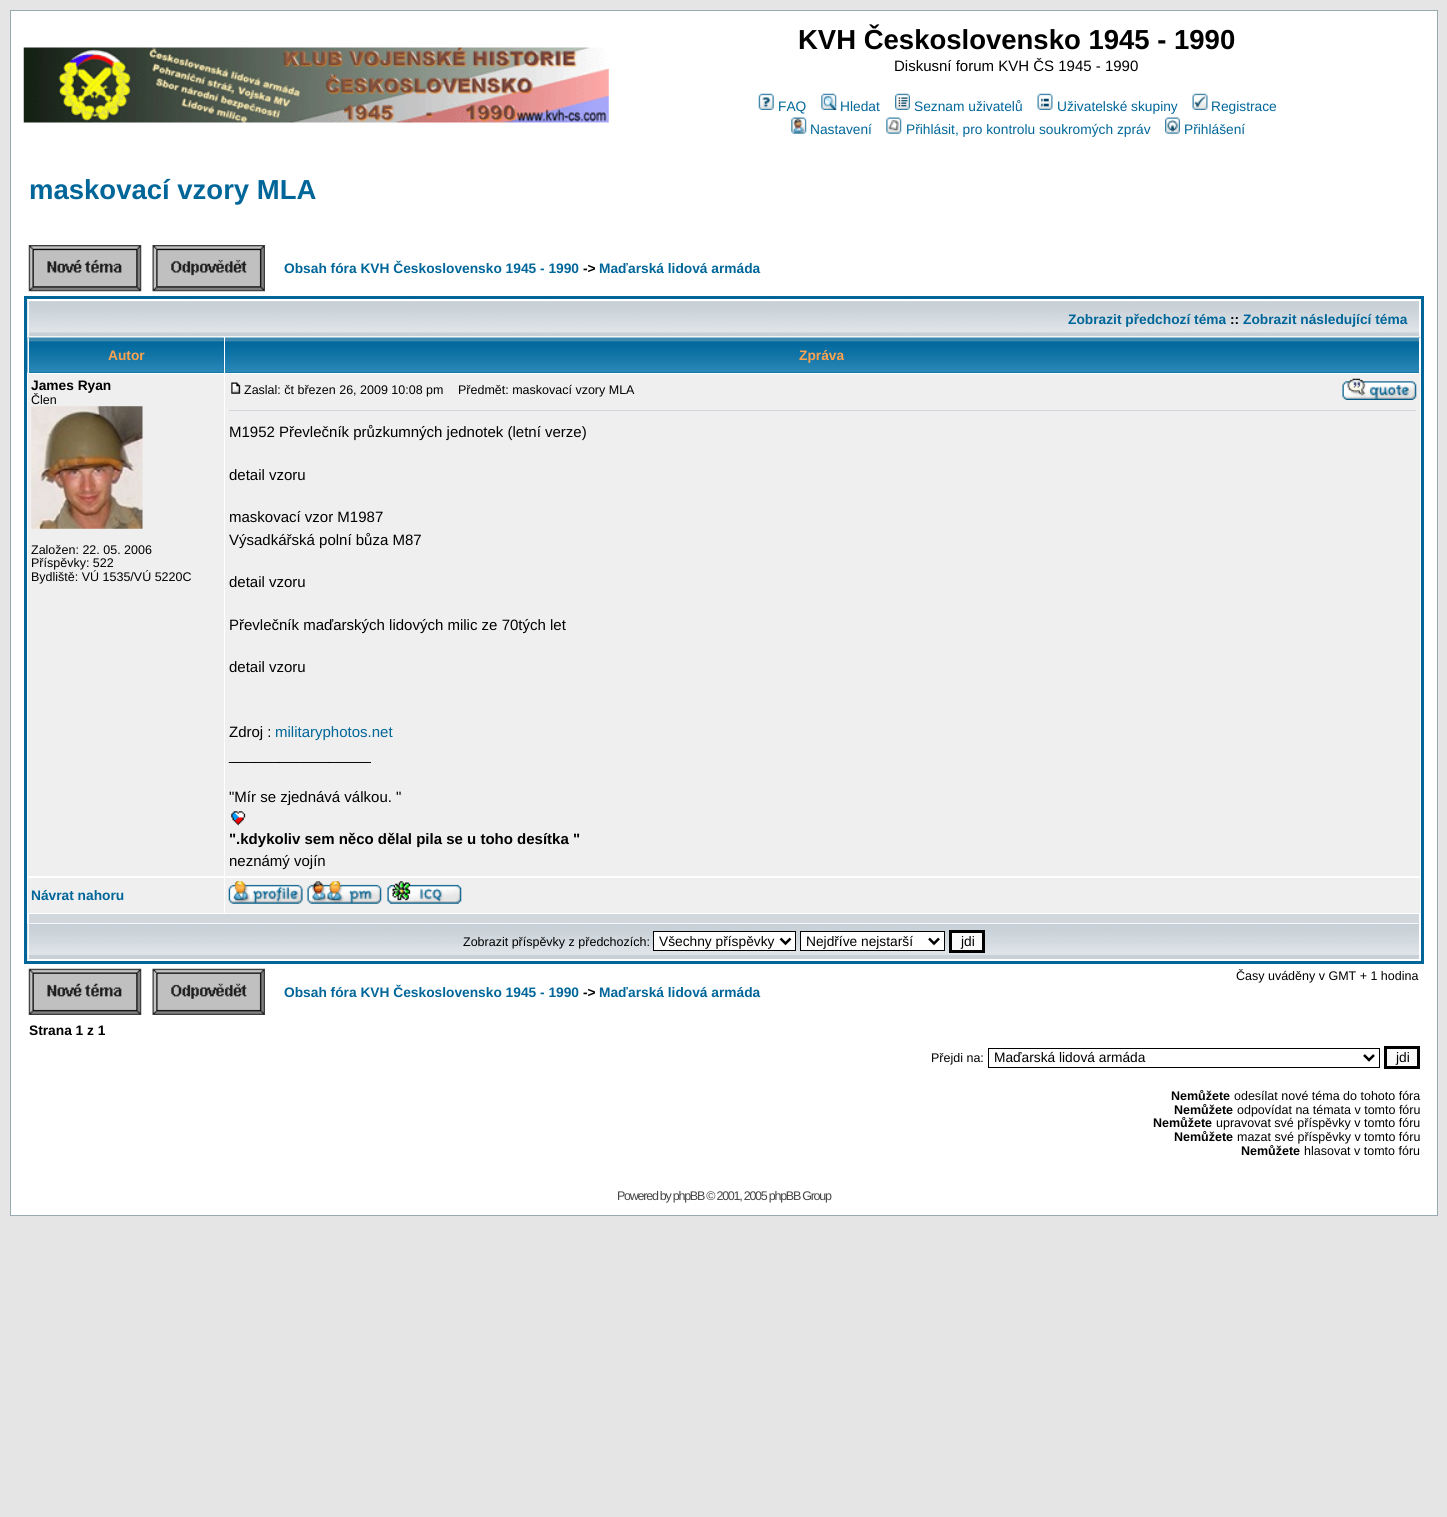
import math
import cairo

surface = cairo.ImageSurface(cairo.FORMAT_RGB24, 1447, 1517)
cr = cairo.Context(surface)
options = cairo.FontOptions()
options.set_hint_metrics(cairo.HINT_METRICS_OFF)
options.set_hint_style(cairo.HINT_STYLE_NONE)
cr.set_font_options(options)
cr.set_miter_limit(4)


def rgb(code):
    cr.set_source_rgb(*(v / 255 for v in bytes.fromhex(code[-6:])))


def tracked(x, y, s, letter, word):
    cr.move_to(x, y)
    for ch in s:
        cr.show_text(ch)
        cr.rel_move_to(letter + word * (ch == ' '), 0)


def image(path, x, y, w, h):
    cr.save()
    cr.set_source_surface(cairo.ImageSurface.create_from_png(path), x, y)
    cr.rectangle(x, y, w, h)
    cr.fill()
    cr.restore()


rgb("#e5e5e5")
cr.paint()
rgb("#ffffff")
cr.rectangle(10.5, 10.5, 1427, 1205)
cr.fill_preserve()
rgb("#98aab1")
cr.set_line_width(1)
cr.stroke()
image("img/1.png", 23, 47, 586, 76)
image("img/2.png", 758, 93, 16, 17)
image("img/3.png", 821, 93, 16, 17)
image("img/4.png", 895, 93, 15, 17)
image("img/5.png", 1037, 93, 16, 17)
image("img/6.png", 1192, 93, 16, 17)
image("img/7.png", 791, 117, 16, 17)
image("img/8.png", 886, 117, 16, 17)
image("img/9.png", 1165, 117, 15, 17)
image("img/10.png", 28, 245, 114, 47)
image("img/11.png", 152, 245, 113, 47)
cr.rectangle(25.5, 297.5, 1397, 665)
rgb("#006699")
cr.set_line_width(3)
cr.stroke()
image("img/12.png", 27, 300, 1393, 37)
for x, y, w, h, color in [
    (28, 300, 1392, 1, "#ffffff"),
    (1419, 300, 1, 36, "#ffffff"),
    (28, 300, 1, 36, "#ffffff"),
    (29, 338, 195, 35, "#006699"),
]:
    rgb(color)
    cr.rectangle(x, y, w, h)
    cr.fill()
image("img/13.png", 27, 337, 197, 36)
rgb("#ffffff")
cr.rectangle(28, 338, 1, 35)
cr.fill()
rgb("#006699")
cr.rectangle(225, 372, 1194, 1)
cr.fill()
image("img/14.png", 225, 337, 1195, 36)
rgb("#ffffff")
cr.rectangle(1419, 338, 1, 35)
cr.fill()
rgb("#efefef")
cr.rectangle(28, 374, 196, 502)
cr.fill()
image("img/15.png", 31, 406, 112, 123)
cr.rectangle(225, 374, 1195, 502)
cr.fill()
image("img/16.png", 231, 382, 10, 12)
image("img/17.png", 1342, 378, 75, 22)
rgb("#d1d7dc")
cr.rectangle(229, 410, 1187, 1)
cr.fill()
image("img/18.png", 231, 811, 15, 15)
rgb("#efefef")
cr.rectangle(28, 878, 196, 35)
cr.fill()
cr.rectangle(225, 878, 1195, 35)
cr.fill()
image("img/19.png", 228, 881, 75, 23)
image("img/20.png", 307, 881, 75, 23)
image("img/21.png", 387, 881, 75, 23)
rgb("#d1d7dc")
cr.rectangle(29, 914, 1390, 9)
cr.fill()
image("img/22.png", 27, 923, 1393, 37)
for x, y, w, h, color in [
    (1419, 924, 1, 36, "#ffffff"),
    (28, 959, 1392, 1, "#ffffff"),
    (28, 924, 1, 36, "#ffffff"),
]:
    rgb(color)
    cr.rectangle(x, y, w, h)
    cr.fill()
cr.rectangle(653.5, 931.5, 142, 19)
cr.fill_preserve()
rgb("#000000")
cr.set_line_width(1)
cr.stroke()
cr.new_path()
cr.move_to(780.5, 938.5)
cr.line_to(785.5, 943.5)
cr.line_to(790.5, 938.5)
cr.set_line_width(2.5)
cr.stroke()
rgb("#ffffff")
cr.rectangle(800.5, 931.5, 144, 19)
cr.fill_preserve()
rgb("#000000")
cr.set_line_width(1)
cr.stroke()
cr.new_path()
cr.move_to(929, 938.5)
cr.line_to(934, 943.5)
cr.line_to(939, 938.5)
cr.set_line_width(2.5)
cr.stroke()
rgb("#fafafa")
cr.rectangle(950.5, 931.5, 33, 20)
cr.fill_preserve()
rgb("#000000")
cr.set_line_width(3)
cr.stroke()
image("img/23.png", 28, 968, 114, 47)
image("img/24.png", 152, 968, 113, 47)
cr.rectangle(988.5, 1048.5, 391, 19)
cr.set_line_width(1)
cr.stroke()
cr.new_path()
cr.move_to(1364, 1055)
cr.line_to(1369, 1060)
cr.line_to(1374, 1055)
cr.set_line_width(2.5)
cr.stroke()
rgb("#fafafa")
cr.rectangle(1385.5, 1047.5, 33, 20)
cr.fill_preserve()
rgb("#000000")
cr.set_line_width(3)
cr.stroke()
cr.select_font_face("Liberation Sans", cairo.FONT_SLANT_NORMAL, cairo.FONT_WEIGHT_BOLD)
cr.set_font_size(27.5)
cr.move_to(798, 49)
cr.show_text("KVH Československo 1945 - 1990")
cr.select_font_face("Liberation Sans")
cr.set_font_size(15)
cr.move_to(894, 71)
cr.show_text("Diskusní forum KVH ČS 1945 - 1990")
cr.set_font_size(13.75)
rgb("#006699")
for x, y, s in [
    (778, 111, "FAQ"),
    (840, 111, "Hledat"),
    (914, 111, "Seznam uživatelů"),
    (1057, 111, "Uživatelské skupiny"),
    (1211, 111, "Registrace"),
    (810, 134, "Nastavení"),
    (906, 134, "Přihlásit, pro kontrolu soukromých zpráv"),
    (1184, 134, "Přihlášení"),
]:
    cr.move_to(x, y)
    cr.show_text(s)
cr.select_font_face("Liberation Sans", cairo.FONT_SLANT_NORMAL, cairo.FONT_WEIGHT_BOLD)
cr.set_font_size(27.5)
cr.move_to(29, 199)
cr.show_text("maskovací vzory MLA")
cr.set_font_size(13.75)
cr.move_to(284, 273)
cr.show_text("Obsah fóra KVH Československo 1945 - 1990")
rgb("#000000")
cr.move_to(583, 273)
cr.show_text("->")
rgb("#006699")
cr.move_to(599, 273)
cr.show_text("Maďarská lidová armáda")
cr.move_to(1068, 324)
cr.show_text("Zobrazit předchozí téma")
rgb("#000000")
cr.move_to(1230, 324)
cr.show_text("::")
rgb("#006699")
cr.move_to(1243, 324)
cr.show_text("Zobrazit následující téma")
rgb("#ffa34f")
cr.move_to(108, 360)
cr.show_text("Autor")
cr.move_to(799, 360)
cr.show_text("Zpráva")
rgb("#000000")
cr.move_to(31, 390)
cr.show_text("James Ryan")
cr.select_font_face("Liberation Sans")
cr.set_font_size(12.5)
for x, y, s in [
    (31, 404, "Člen"),
    (31, 554, "Založen: 22. 05. 2006"),
    (31, 567, "Příspěvky: 522"),
    (31, 581, "Bydliště: VÚ 1535/VÚ 5220C"),
    (244, 394, "Zaslal: čt březen 26, 2009 10:08 pm"),
    (458, 394, "Předmět: maskovací vzory MLA"),
]:
    cr.move_to(x, y)
    cr.show_text(s)
cr.set_font_size(15)
for x, y, s in [
    (229, 437, "M1952 Převlečník průzkumných jednotek (letní verze)"),
    (229, 480, "detail vzoru"),
    (229, 522, "maskovací vzor M1987"),
    (229, 545, "Výsadkářská polní bůza M87"),
    (229, 587, "detail vzoru"),
    (229, 630, "Převlečník maďarských lidových milic ze 70tých let"),
    (229, 672, "detail vzoru"),
    (229, 737, "Zdroj :"),
]:
    cr.move_to(x, y)
    cr.show_text(s)
rgb("#006699")
cr.move_to(275, 737)
cr.show_text("militaryphotos.net")
rgb("#000000")
cr.move_to(229, 760)
cr.show_text("_________________")
cr.move_to(229, 802)
cr.show_text("\"Mír se zjednává válkou. \"")
cr.select_font_face("Liberation Sans", cairo.FONT_SLANT_NORMAL, cairo.FONT_WEIGHT_BOLD)
cr.move_to(229, 844)
cr.show_text("\".kdykoliv sem něco dělal pila se u toho desítka \"")
cr.select_font_face("Liberation Sans")
cr.move_to(229, 866)
cr.show_text("neznámý vojín")
cr.select_font_face("Liberation Sans", cairo.FONT_SLANT_NORMAL, cairo.FONT_WEIGHT_BOLD)
cr.set_font_size(13.75)
rgb("#006699")
cr.move_to(31, 900)
cr.show_text("Návrat nahoru")
cr.select_font_face("Liberation Sans")
cr.set_font_size(12.5)
rgb("#000000")
cr.move_to(463, 946)
cr.show_text("Zobrazit příspěvky z předchozích:")
cr.set_font_size(13.75)
for x, y, s in [
    (659, 946, "Všechny příspěvky"),
    (806, 946, "Nejdříve nejstarší"),
    (961, 946, "jdi"),
]:
    cr.move_to(x, y)
    cr.show_text(s)
cr.set_font_size(12.5)
cr.move_to(1236, 980)
cr.show_text("Časy uváděny v GMT + 1 hodina")
cr.select_font_face("Liberation Sans", cairo.FONT_SLANT_NORMAL, cairo.FONT_WEIGHT_BOLD)
cr.set_font_size(13.75)
rgb("#006699")
cr.move_to(284, 997)
cr.show_text("Obsah fóra KVH Československo 1945 - 1990")
rgb("#000000")
cr.move_to(583, 997)
cr.show_text("->")
rgb("#006699")
cr.move_to(599, 997)
cr.show_text("Maďarská lidová armáda")
rgb("#000000")
cr.move_to(29, 1035)
cr.show_text("Strana 1 z 1")
cr.select_font_face("Liberation Sans")
cr.set_font_size(12.5)
cr.move_to(931, 1062)
cr.show_text("Přejdi na:")
cr.set_font_size(13.75)
cr.move_to(994, 1062)
cr.show_text("Maďarská lidová armáda")
cr.move_to(1396, 1062)
cr.show_text("jdi")
cr.select_font_face("Liberation Sans", cairo.FONT_SLANT_NORMAL, cairo.FONT_WEIGHT_BOLD)
cr.set_font_size(12.5)
cr.move_to(1171, 1100)
cr.show_text("Nemůžete")
cr.select_font_face("Liberation Sans")
cr.move_to(1234, 1100)
cr.show_text("odesílat nové téma do tohoto fóra")
cr.select_font_face("Liberation Sans", cairo.FONT_SLANT_NORMAL, cairo.FONT_WEIGHT_BOLD)
cr.move_to(1174, 1114)
cr.show_text("Nemůžete")
cr.select_font_face("Liberation Sans")
cr.move_to(1237, 1114)
cr.show_text("odpovídat na témata v tomto fóru")
cr.select_font_face("Liberation Sans", cairo.FONT_SLANT_NORMAL, cairo.FONT_WEIGHT_BOLD)
cr.move_to(1153, 1127)
cr.show_text("Nemůžete")
cr.select_font_face("Liberation Sans")
cr.move_to(1216, 1127)
cr.show_text("upravovat své příspěvky v tomto fóru")
cr.select_font_face("Liberation Sans", cairo.FONT_SLANT_NORMAL, cairo.FONT_WEIGHT_BOLD)
cr.move_to(1174, 1141)
cr.show_text("Nemůžete")
cr.select_font_face("Liberation Sans")
cr.move_to(1237, 1141)
cr.show_text("mazat své příspěvky v tomto fóru")
cr.select_font_face("Liberation Sans", cairo.FONT_SLANT_NORMAL, cairo.FONT_WEIGHT_BOLD)
cr.move_to(1241, 1155)
cr.show_text("Nemůžete")
cr.select_font_face("Liberation Sans")
cr.move_to(1304, 1155)
cr.show_text("hlasovat v tomto fóru")
rgb("#444444")
tracked(617, 1200, "Powered by phpBB © 2001, 2005 phpBB Group", -1.25, 0)
surface.write_to_png("page.png")
